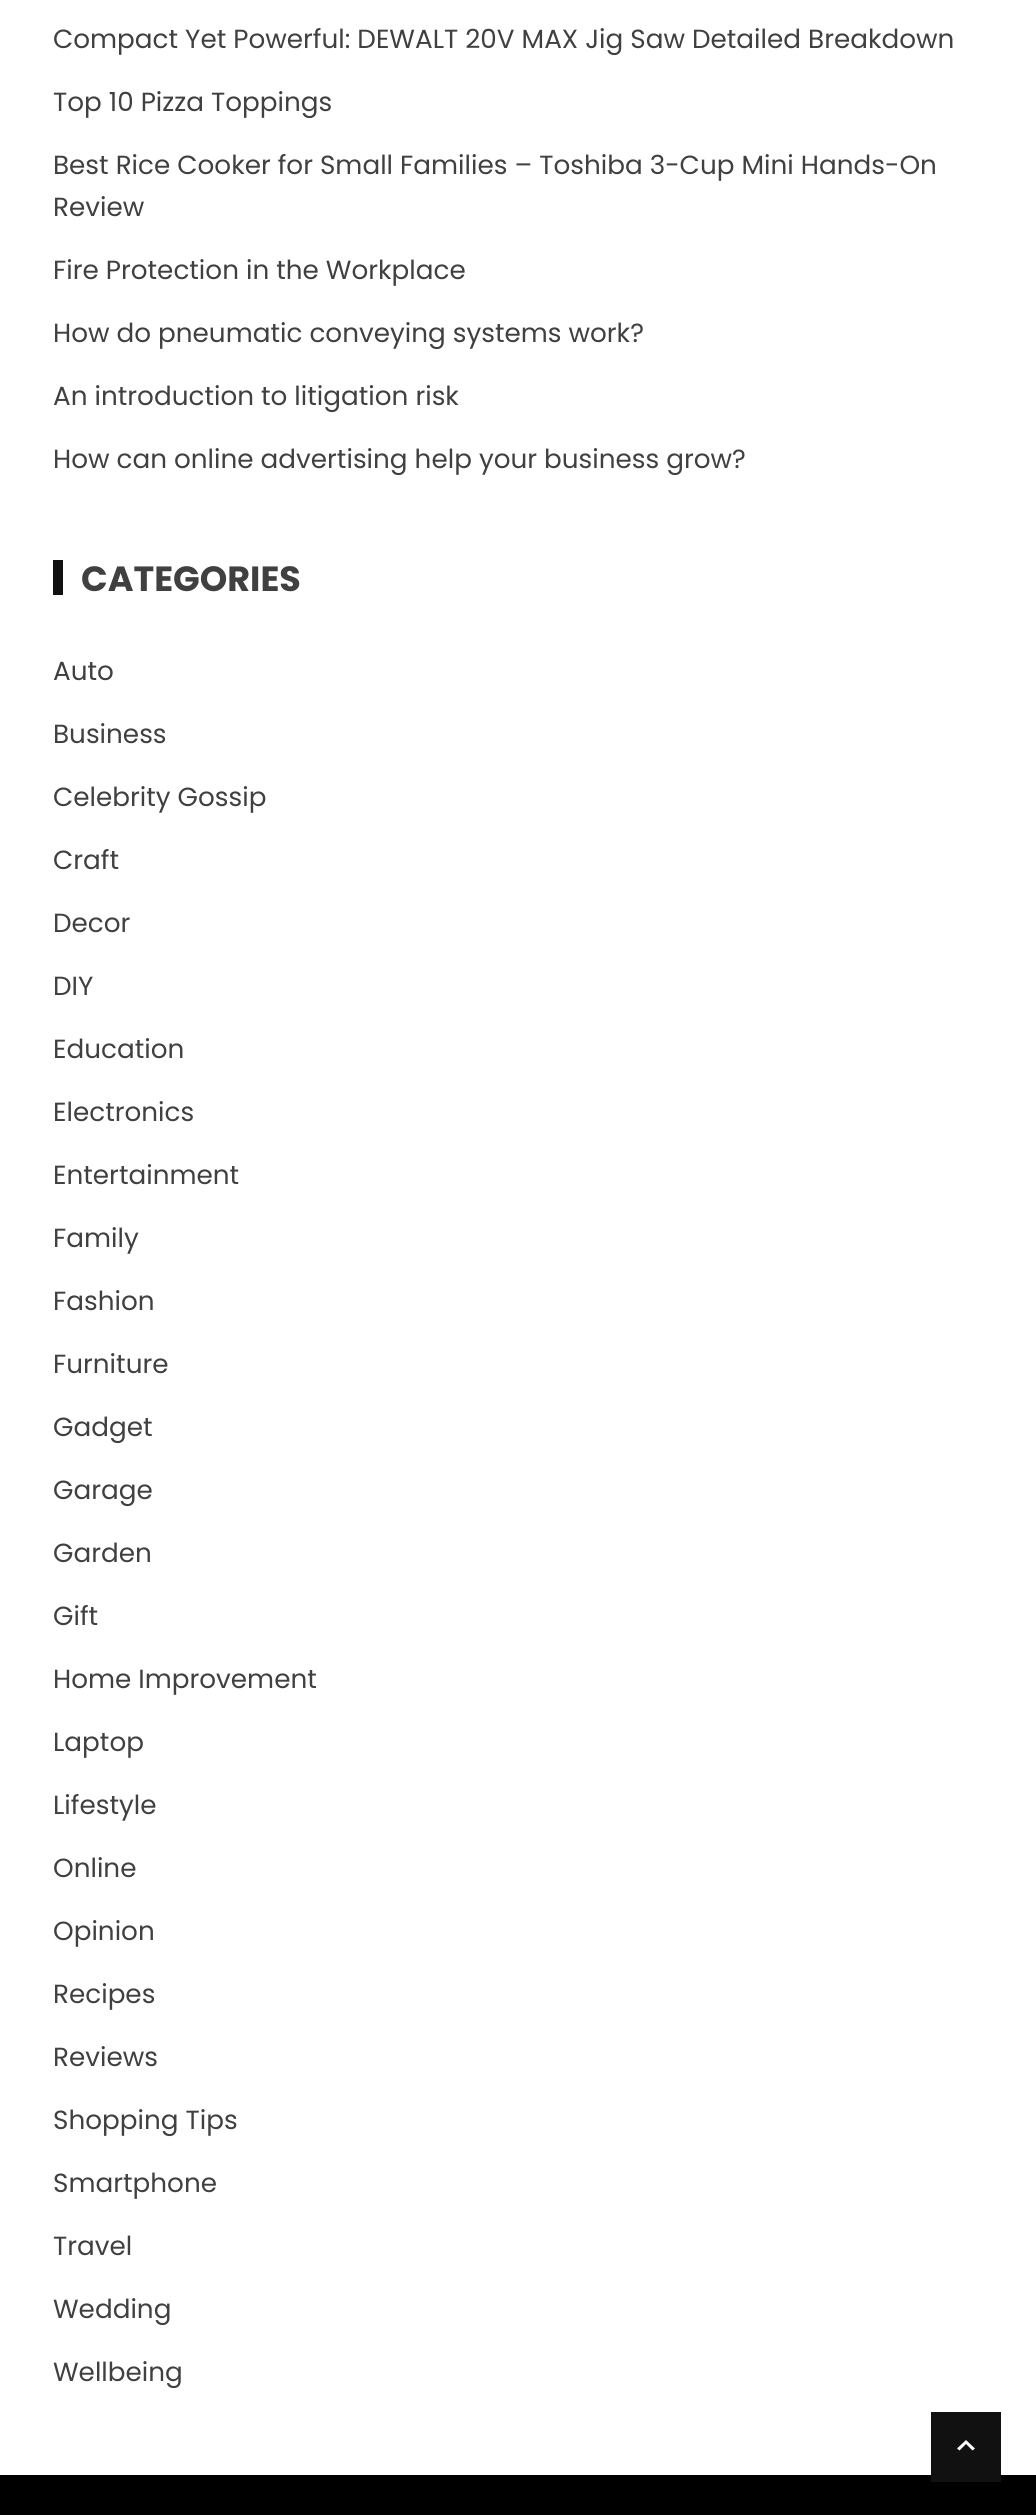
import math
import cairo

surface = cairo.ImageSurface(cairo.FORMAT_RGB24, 1036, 2515)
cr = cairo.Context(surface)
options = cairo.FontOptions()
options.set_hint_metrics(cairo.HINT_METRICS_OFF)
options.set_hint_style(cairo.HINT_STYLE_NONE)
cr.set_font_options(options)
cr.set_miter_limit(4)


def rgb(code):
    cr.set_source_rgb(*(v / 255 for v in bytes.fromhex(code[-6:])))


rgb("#ffffff")
cr.paint()
for x, y, w, h, color in [
    (53, 560, 10, 35, "#111111"),
    (0, 2475, 1036, 40, "#000000"),
    (931, 2412, 70, 70, "#111111"),
]:
    rgb(color)
    cr.rectangle(x, y, w, h)
    cr.fill()
rgb("#ffffff")
cr.new_path()
cr.move_to(959.5, 2450.5)
cr.line_to(966, 2444)
cr.line_to(972.5, 2450.5)
cr.line_to(975, 2448.5)
cr.line_to(966, 2440)
cr.line_to(957, 2448.5)
cr.close_path()
cr.fill()
cr.select_font_face("Poppins")
cr.set_font_size(26.25)
rgb("#404040")
for x, y, s in [
    (53, 48, "Compact Yet Powerful: DEWALT 20V MAX Jig Saw Detailed Breakdown"),
    (53, 111, "Top 10 Pizza Toppings"),
    (53, 174, "Best Rice Cooker for Small Families – Toshiba 3-Cup Mini Hands-On"),
    (53, 216, "Review"),
    (53, 279, "Fire Protection in the Workplace"),
    (53, 342, "How do pneumatic conveying systems work?"),
    (53, 405, "An introduction to litigation risk"),
    (53, 468, "How can online advertising help your business grow?"),
]:
    cr.move_to(x, y)
    cr.show_text(s)
cr.select_font_face("Poppins", cairo.FONT_SLANT_NORMAL, cairo.FONT_WEIGHT_BOLD)
cr.set_font_size(35)
cr.move_to(81, 591)
cr.show_text("CATEGORIES")
cr.select_font_face("Poppins")
cr.set_font_size(26.25)
for x, y, s in [
    (53, 680, "Auto"),
    (53, 743, "Business"),
    (53, 806, "Celebrity Gossip"),
    (53, 869, "Craft"),
    (53, 932, "Decor"),
    (53, 995, "DIY"),
    (53, 1058, "Education"),
    (53, 1121, "Electronics"),
    (53, 1184, "Entertainment"),
    (53, 1247, "Family"),
    (53, 1310, "Fashion"),
    (53, 1373, "Furniture"),
    (53, 1436, "Gadget"),
    (53, 1499, "Garage"),
    (53, 1562, "Garden"),
    (53, 1625, "Gift"),
    (53, 1688, "Home Improvement"),
    (53, 1751, "Laptop"),
    (53, 1814, "Lifestyle"),
    (53, 1877, "Online"),
    (53, 1940, "Opinion"),
    (53, 2003, "Recipes"),
    (53, 2066, "Reviews"),
    (53, 2129, "Shopping Tips"),
    (53, 2192, "Smartphone"),
    (53, 2255, "Travel"),
    (53, 2318, "Wedding"),
    (53, 2381, "Wellbeing"),
]:
    cr.move_to(x, y)
    cr.show_text(s)
surface.write_to_png("page.png")
